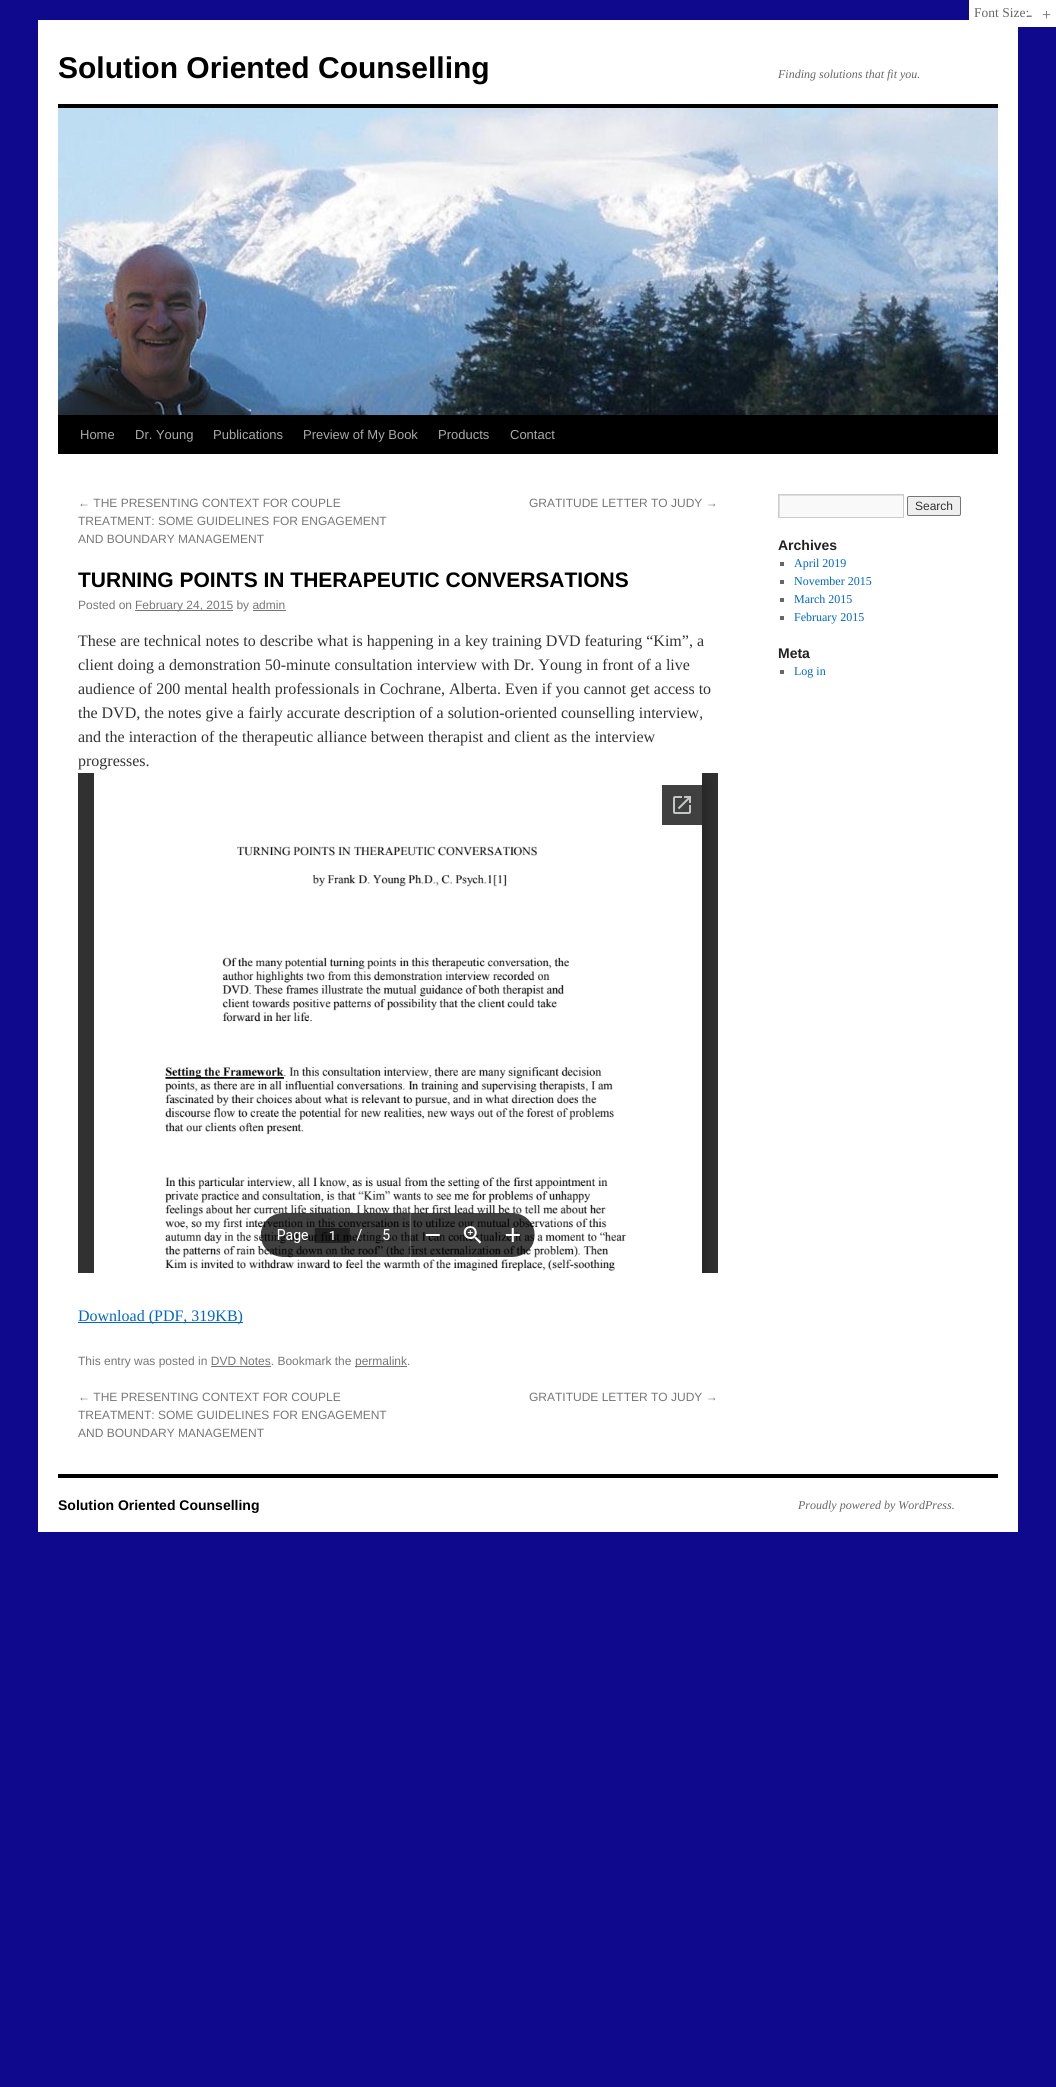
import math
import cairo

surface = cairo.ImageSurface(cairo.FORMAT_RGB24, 1056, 2087)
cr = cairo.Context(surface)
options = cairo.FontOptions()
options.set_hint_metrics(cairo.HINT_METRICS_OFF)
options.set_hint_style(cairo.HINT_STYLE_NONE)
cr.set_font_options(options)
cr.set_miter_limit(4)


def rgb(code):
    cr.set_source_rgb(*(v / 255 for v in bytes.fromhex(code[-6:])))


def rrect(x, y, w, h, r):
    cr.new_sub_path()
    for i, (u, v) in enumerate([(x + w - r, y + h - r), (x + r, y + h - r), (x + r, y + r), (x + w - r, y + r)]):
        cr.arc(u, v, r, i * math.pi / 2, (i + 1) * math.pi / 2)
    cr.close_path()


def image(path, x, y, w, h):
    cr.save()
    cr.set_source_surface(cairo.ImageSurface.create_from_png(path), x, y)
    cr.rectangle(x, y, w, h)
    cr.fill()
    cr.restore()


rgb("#0e098d")
cr.paint()
rgb("#ffffff")
cr.rectangle(38, 20, 980, 1512)
cr.fill()
cr.new_path()
cr.move_to(969, 0)
cr.line_to(1056, 0)
cr.line_to(1056, 27)
cr.line_to(972, 27)
cr.curve_to(970.5, 27, 969, 25.5, 969, 24)
cr.close_path()
cr.fill()
rgb("#000000")
cr.rectangle(58, 104, 940, 4)
cr.fill()
cr.rectangle(58, 415, 940, 39)
cr.fill()
image("img/1.png", 58, 108, 940, 307)
rgb("#777777")
cr.rectangle(135, 610, 98, 1)
cr.fill()
cr.rectangle(253, 610, 33, 1)
cr.fill()
image("img/2.png", 78, 773, 640, 500)
for x, y, w, h, color in [
    (78, 1322, 165, 1, "#0066cc"),
    (355, 1366, 52, 1, "#777777"),
    (211, 1366, 60, 1, "#777777"),
    (780, 496, 123, 21, "#f9f9f9"),
]:
    rgb(color)
    cr.rectangle(x, y, w, h)
    cr.fill()
cr.save()
cr.rectangle(779, 495, 124, 22)
cr.clip()
rgb("#e0e0e0")
cr.set_fill_rule(cairo.FILL_RULE_EVEN_ODD)
cr.new_path()
cr.move_to(680, 396)
cr.line_to(1002, 396)
cr.line_to(1002, 616)
cr.line_to(680, 616)
cr.close_path()
cr.move_to(780, 496)
cr.line_to(904, 496)
cr.line_to(904, 518)
cr.line_to(780, 518)
cr.close_path()
cr.fill()
cr.restore()
cr.rectangle(778.5, 494.5, 125, 23)
rgb("#cccccc")
cr.set_line_width(1)
cr.stroke()
rgb("#efefef")
rrect(907.5, 496.5, 53, 19, 1.5)
cr.fill_preserve()
rgb("#767676")
cr.stroke()
for x, y, w, h, color in [
    (780, 562, 4, 4, "#666666"),
    (780, 580, 4, 4, "#666666"),
    (780, 598, 4, 4, "#666666"),
    (780, 616, 4, 4, "#666666"),
    (780, 670, 4, 4, "#666666"),
    (58, 1474, 940, 4, "#000000"),
]:
    rgb(color)
    cr.rectangle(x, y, w, h)
    cr.fill()
cr.select_font_face("Liberation Serif")
cr.set_font_size(13.5)
rgb("#666666")
cr.move_to(974, 17)
cr.show_text("Font Size:")
cr.set_font_size(16)
cr.move_to(1027, 20)
cr.show_text("-")
cr.move_to(1042, 20)
cr.show_text("+")
cr.select_font_face("Liberation Sans", cairo.FONT_SLANT_NORMAL, cairo.FONT_WEIGHT_BOLD)
cr.set_font_size(30)
rgb("#000000")
cr.move_to(58, 78)
cr.show_text("Solution Oriented Counselling")
cr.select_font_face("Liberation Serif", cairo.FONT_SLANT_ITALIC)
cr.set_font_size(12)
rgb("#666666")
cr.move_to(778, 78)
cr.show_text("Finding solutions that fit you.")
cr.select_font_face("Liberation Sans")
cr.set_font_size(13)
rgb("#aaaaaa")
for x, y, s in [
    (80, 439, "Home"),
    (135, 439, "Dr. Young"),
    (213, 439, "Publications"),
    (303, 439, "Preview of My Book"),
    (438, 439, "Products"),
    (510, 439, "Contact"),
]:
    cr.move_to(x, y)
    cr.show_text(s)
cr.set_font_size(12)
rgb("#777777")
for x, y, s in [
    (78, 507, "← THE PRESENTING CONTEXT FOR COUPLE"),
    (78, 525, "TREATMENT: SOME GUIDELINES FOR ENGAGEMENT"),
    (78, 543, "AND BOUNDARY MANAGEMENT"),
    (529, 507, "GRATITUDE LETTER TO JUDY →"),
]:
    cr.move_to(x, y)
    cr.show_text(s)
cr.select_font_face("Liberation Sans", cairo.FONT_SLANT_NORMAL, cairo.FONT_WEIGHT_BOLD)
cr.set_font_size(21)
rgb("#000000")
cr.move_to(78, 587)
cr.show_text("TURNING POINTS IN THERAPEUTIC CONVERSATIONS")
cr.select_font_face("Liberation Sans")
cr.set_font_size(12)
rgb("#777777")
cr.move_to(78, 609)
cr.show_text("Posted on")
cr.move_to(135, 609)
cr.show_text("February 24, 2015 by admin")
cr.select_font_face("Liberation Serif")
cr.set_font_size(16)
rgb("#333333")
for x, y, s in [
    (78, 646, "These are technical notes to describe what is happening in a key training DVD featuring “Kim”, a"),
    (78, 670, "client doing a demonstration 50-minute consultation interview with Dr. Young in front of a live"),
    (78, 694, "audience of 200 mental health professionals in Cochrane, Alberta. Even if you cannot get access to"),
    (78, 718, "the DVD, the notes give a fairly accurate description of a solution-oriented counselling interview,"),
    (78, 742, "and the interaction of the therapeutic alliance between therapist and client as the interview"),
    (78, 766, "progresses."),
]:
    cr.move_to(x, y)
    cr.show_text(s)
rgb("#0066cc")
cr.move_to(78, 1321)
cr.show_text("Download (PDF, 319KB)")
cr.select_font_face("Liberation Sans")
cr.set_font_size(12)
rgb("#777777")
for x, y, s in [
    (78, 1365, "This entry was posted in DVD Notes. Bookmark the"),
    (355, 1365, "permalink."),
    (78, 1401, "← THE PRESENTING CONTEXT FOR COUPLE"),
    (78, 1419, "TREATMENT: SOME GUIDELINES FOR ENGAGEMENT"),
    (78, 1437, "AND BOUNDARY MANAGEMENT"),
    (529, 1401, "GRATITUDE LETTER TO JUDY →"),
]:
    cr.move_to(x, y)
    cr.show_text(s)
rgb("#333333")
cr.move_to(915, 510)
cr.show_text("Search")
cr.select_font_face("Liberation Sans", cairo.FONT_SLANT_NORMAL, cairo.FONT_WEIGHT_BOLD)
cr.set_font_size(14)
rgb("#222222")
cr.move_to(778, 550)
cr.show_text("Archives")
cr.select_font_face("Liberation Serif")
cr.set_font_size(12)
rgb("#0066cc")
for x, y, s in [
    (794, 567, "April 2019"),
    (794, 585, "November 2015"),
    (794, 603, "March 2015"),
    (794, 621, "February 2015"),
]:
    cr.move_to(x, y)
    cr.show_text(s)
cr.select_font_face("Liberation Sans", cairo.FONT_SLANT_NORMAL, cairo.FONT_WEIGHT_BOLD)
cr.set_font_size(14)
rgb("#222222")
cr.move_to(778, 658)
cr.show_text("Meta")
cr.select_font_face("Liberation Serif")
cr.set_font_size(12)
rgb("#0066cc")
cr.move_to(794, 675)
cr.show_text("Log in")
cr.select_font_face("Liberation Sans", cairo.FONT_SLANT_NORMAL, cairo.FONT_WEIGHT_BOLD)
cr.set_font_size(14)
rgb("#000000")
cr.move_to(58, 1510)
cr.show_text("Solution Oriented Counselling")
cr.select_font_face("Liberation Serif", cairo.FONT_SLANT_ITALIC)
cr.set_font_size(12)
rgb("#666666")
cr.move_to(798, 1509)
cr.show_text("Proudly powered by WordPress.")
surface.write_to_png("page.png")
